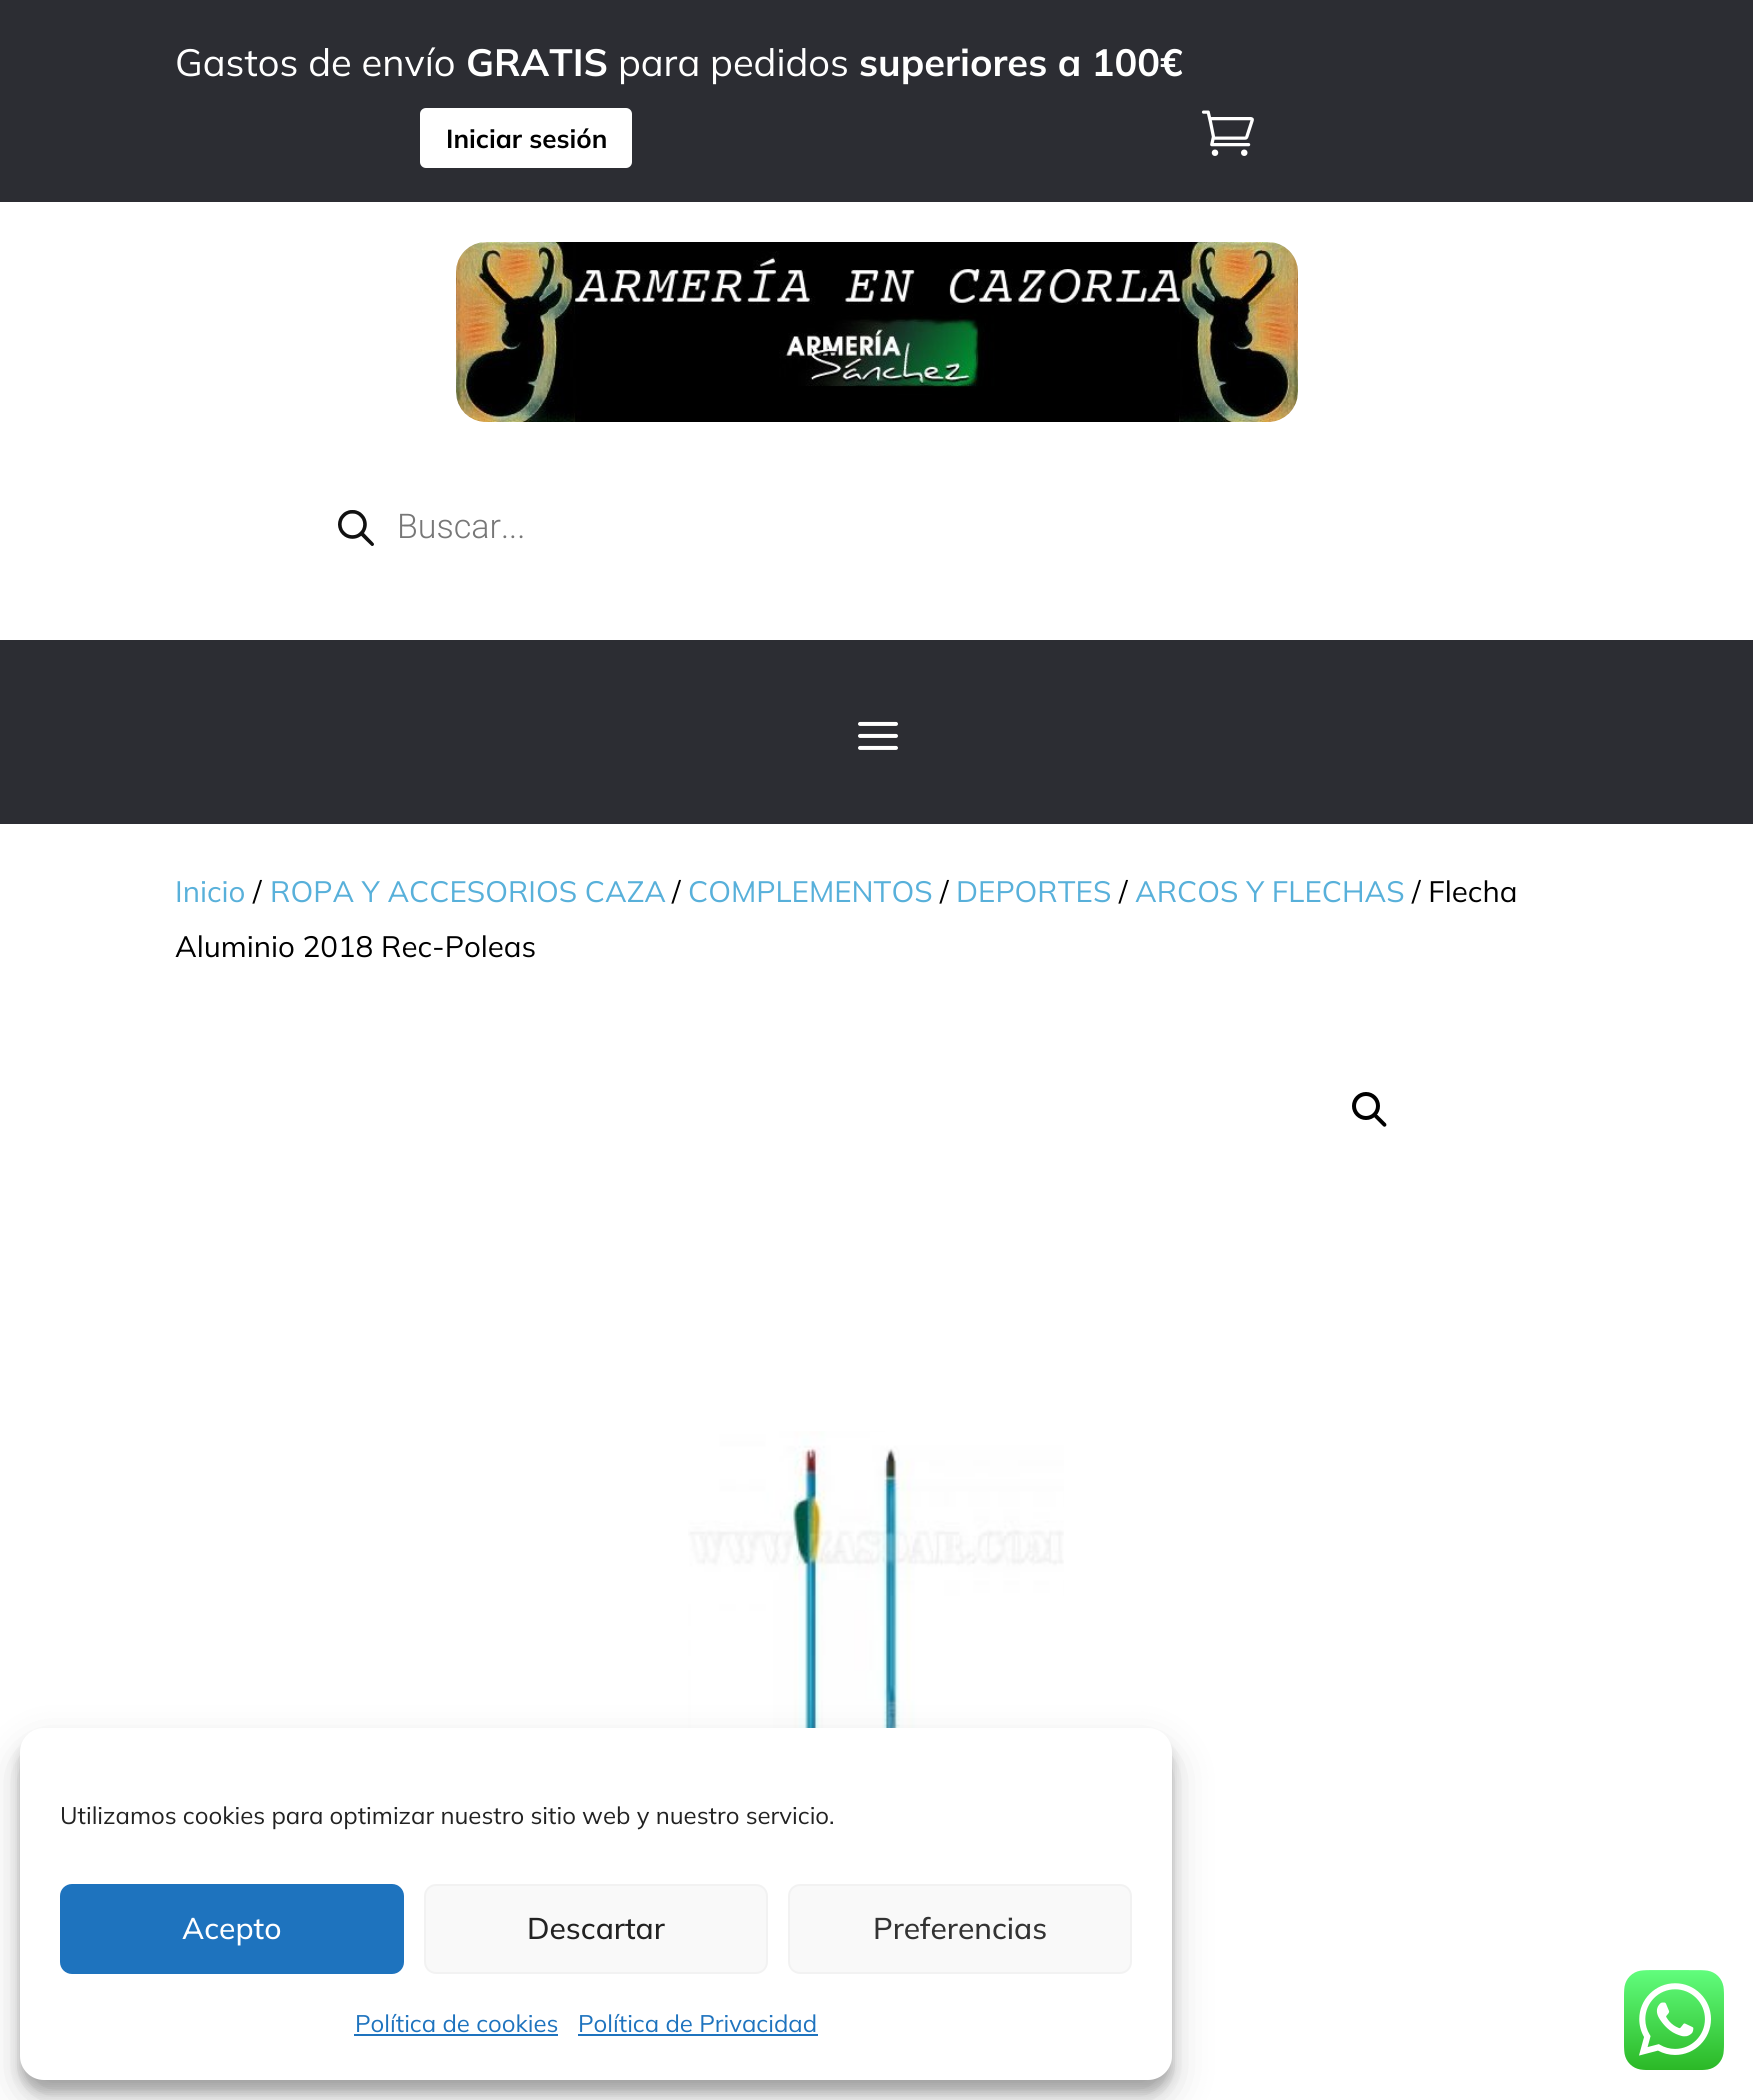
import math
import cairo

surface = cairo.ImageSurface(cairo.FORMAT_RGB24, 1753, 2100)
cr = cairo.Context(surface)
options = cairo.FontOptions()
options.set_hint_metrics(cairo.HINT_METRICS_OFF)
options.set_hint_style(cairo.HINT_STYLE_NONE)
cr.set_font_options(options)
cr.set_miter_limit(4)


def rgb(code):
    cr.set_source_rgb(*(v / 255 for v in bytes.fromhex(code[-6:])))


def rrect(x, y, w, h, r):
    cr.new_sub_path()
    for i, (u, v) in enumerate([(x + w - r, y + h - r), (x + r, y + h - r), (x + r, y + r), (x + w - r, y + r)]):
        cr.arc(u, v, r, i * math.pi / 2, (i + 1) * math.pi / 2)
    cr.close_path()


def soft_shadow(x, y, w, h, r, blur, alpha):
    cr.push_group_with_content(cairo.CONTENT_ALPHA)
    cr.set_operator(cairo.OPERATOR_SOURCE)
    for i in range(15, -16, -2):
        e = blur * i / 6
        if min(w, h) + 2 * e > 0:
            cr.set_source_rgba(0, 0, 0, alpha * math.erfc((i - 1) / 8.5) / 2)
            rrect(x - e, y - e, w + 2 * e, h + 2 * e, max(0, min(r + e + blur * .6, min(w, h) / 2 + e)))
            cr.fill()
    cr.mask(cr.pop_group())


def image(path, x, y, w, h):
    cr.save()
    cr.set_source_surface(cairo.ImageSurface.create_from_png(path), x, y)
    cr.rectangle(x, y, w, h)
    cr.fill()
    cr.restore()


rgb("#ffffff")
cr.paint()
rgb("#2c2d33")
cr.rectangle(0, 0, 1753, 202)
cr.fill()
rgb("#ffffff")
rrect(420, 108, 212, 60, 6)
cr.fill()
image("img/1.png", 1201, 110, 53, 46)
image("img/2.png", 456, 242, 842, 180)
image("img/3.png", 338, 510, 36, 36)
rgb("#2c2d33")
cr.rectangle(0, 640, 1753, 184)
cr.fill()
image("img/4.png", 858, 721, 40, 29)
cr.arc(1366, 1106, 12, 0, 2 * math.pi)
rgb("#000000")
cr.set_line_width(4)
cr.stroke()
cr.new_path()
cr.move_to(1374.5, 1115)
cr.curve_to(1375.5, 1114, 1376.5, 1114, 1377.5, 1115)
cr.line_to(1386, 1123.5)
cr.curve_to(1386.5, 1124, 1386.5, 1125.5, 1386, 1126)
cr.curve_to(1385, 1127, 1384, 1127, 1383, 1126)
cr.line_to(1374.5, 1117.5)
cr.curve_to(1374, 1117, 1374, 1115.5, 1374.5, 1115)
cr.close_path()
cr.fill()
image("img/5.png", 688, 1431, 376, 297)
rgb("#000000")
soft_shadow(20, 1740, 1152, 352, 24, 6, 0.23)
soft_shadow(20, 1748, 1152, 352, 24, 20, 0.19)
rgb("#ffffff")
rrect(20, 1728, 1152, 352, 24)
cr.fill()
rgb("#1e73be")
rrect(61, 1885, 342, 88, 11)
cr.fill_preserve()
cr.set_line_width(2)
cr.stroke()
rgb("#f9f9f9")
rrect(425, 1885, 342, 88, 11)
cr.fill_preserve()
rgb("#f2f2f2")
cr.stroke()
rgb("#f9f9f9")
rrect(789, 1885, 342, 88, 11)
cr.fill_preserve()
rgb("#f2f2f2")
cr.stroke()
rgb("#1e73be")
cr.rectangle(354, 2034, 204, 2)
cr.fill()
cr.rectangle(578, 2034, 240, 2)
cr.fill()
image("img/6.png", 1624, 1970, 100, 100)
cr.select_font_face("Mulish")
cr.set_font_size(38)
rgb("#ffffff")
cr.move_to(175, 76)
cr.show_text("Gastos de envío")
cr.select_font_face("Mulish", cairo.FONT_SLANT_NORMAL, cairo.FONT_WEIGHT_BOLD)
cr.move_to(466, 76)
cr.show_text("GRATIS")
cr.select_font_face("Mulish")
cr.move_to(618, 76)
cr.show_text("para pedidos")
cr.select_font_face("Mulish", cairo.FONT_SLANT_NORMAL, cairo.FONT_WEIGHT_BOLD)
cr.move_to(859, 76)
cr.show_text("superiores a 100€")
cr.set_font_size(26)
rgb("#000000")
cr.move_to(446, 148)
cr.show_text("Iniciar sesión")
cr.select_font_face("Roboto Light")
cr.set_font_size(34)
rgb("#777777")
cr.move_to(397, 538)
cr.show_text("Buscar...")
cr.select_font_face("Mulish")
cr.set_font_size(29.5)
rgb("#58b0da")
cr.move_to(175, 902)
cr.show_text("Inicio")
rgb("#000000")
cr.move_to(253, 902)
cr.show_text("/")
rgb("#58b0da")
cr.move_to(270, 902)
cr.show_text("ROPA Y ACCESORIOS CAZA")
rgb("#000000")
cr.move_to(672, 902)
cr.show_text("/")
rgb("#58b0da")
cr.move_to(688, 902)
cr.show_text("COMPLEMENTOS")
rgb("#000000")
cr.move_to(940, 902)
cr.show_text("/")
rgb("#58b0da")
cr.move_to(956, 902)
cr.show_text("DEPORTES")
rgb("#000000")
cr.move_to(1119, 902)
cr.show_text("/")
rgb("#58b0da")
cr.move_to(1135, 902)
cr.show_text("ARCOS Y FLECHAS")
rgb("#000000")
cr.move_to(1412, 902)
cr.show_text("/ Flecha")
cr.move_to(175, 957)
cr.show_text("Aluminio 2018 Rec-Poleas")
cr.set_font_size(24)
rgb("#222222")
cr.move_to(60, 1824)
cr.show_text("Utilizamos cookies para optimizar nuestro sitio web y nuestro servicio.")
cr.select_font_face("Mulish Medium")
cr.set_font_size(30)
rgb("#ffffff")
cr.move_to(182, 1939)
cr.show_text("Acepto")
rgb("#222222")
cr.move_to(527, 1939)
cr.show_text("Descartar")
rgb("#333333")
cr.move_to(873, 1939)
cr.show_text("Preferencias")
cr.select_font_face("Mulish")
cr.set_font_size(24)
rgb("#1e73be")
cr.move_to(355, 2032)
cr.show_text("Política de cookies")
cr.move_to(578, 2032)
cr.show_text("Política de Privacidad")
surface.write_to_png("page.png")
